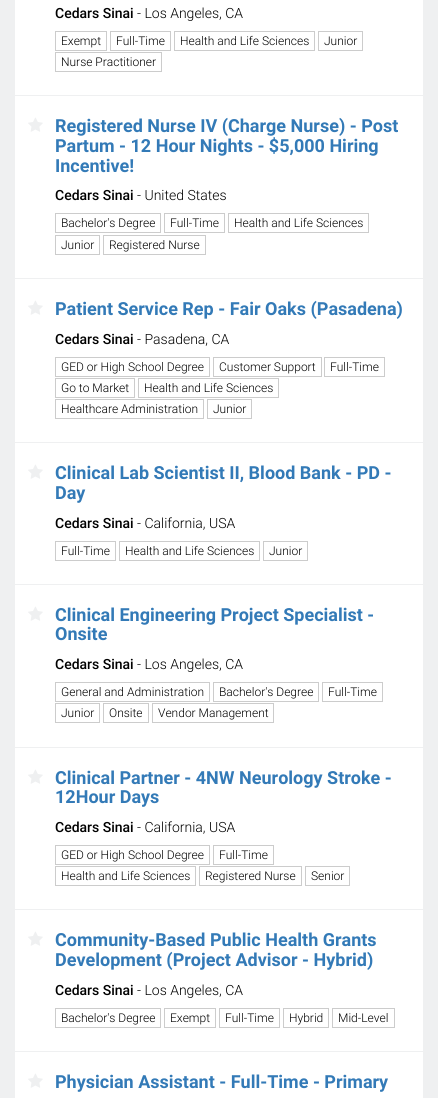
import math
import cairo

surface = cairo.ImageSurface(cairo.FORMAT_RGB24, 438, 1098)
cr = cairo.Context(surface)
options = cairo.FontOptions()
options.set_hint_metrics(cairo.HINT_METRICS_OFF)
options.set_hint_style(cairo.HINT_STYLE_NONE)
cr.set_font_options(options)
cr.set_miter_limit(4)


def rgb(code):
    cr.set_source_rgb(*(v / 255 for v in bytes.fromhex(code[-6:])))


def image(path, x, y, w, h):
    cr.save()
    cr.set_source_surface(cairo.ImageSurface.create_from_png(path), x, y)
    cr.rectangle(x, y, w, h)
    cr.fill()
    cr.restore()


rgb("#eff0f1")
cr.paint()
rgb("#ffffff")
cr.rectangle(15, 0, 408, 95)
cr.fill()
cr.rectangle(55.5, 31.5, 51, 19)
rgb("#cccccc")
cr.set_line_width(1)
cr.stroke()
cr.rectangle(110.5, 31.5, 60, 19)
cr.stroke()
cr.rectangle(174.5, 31.5, 140, 19)
cr.stroke()
cr.rectangle(318.5, 31.5, 44, 19)
cr.stroke()
cr.rectangle(55.5, 52.5, 106, 19)
cr.stroke()
rgb("#ffffff")
cr.rectangle(15, 96, 408, 182)
cr.fill()
image("img/1.png", 28, 117, 15, 15)
cr.rectangle(55.5, 213.5, 105, 19)
rgb("#cccccc")
cr.stroke()
cr.rectangle(164.5, 213.5, 60, 19)
cr.stroke()
cr.rectangle(228.5, 213.5, 140, 19)
cr.stroke()
cr.rectangle(55.5, 235.5, 44, 19)
cr.stroke()
cr.rectangle(103.5, 235.5, 102, 19)
cr.stroke()
rgb("#ffffff")
cr.rectangle(15, 279, 408, 163)
cr.fill()
image("img/1.png", 28, 300, 15, 15)
cr.rectangle(55.5, 357.5, 154, 19)
rgb("#cccccc")
cr.stroke()
cr.rectangle(213.5, 357.5, 108, 19)
cr.stroke()
cr.rectangle(324.5, 357.5, 60, 19)
cr.stroke()
cr.rectangle(55.5, 378.5, 79, 19)
cr.stroke()
cr.rectangle(138.5, 378.5, 140, 19)
cr.stroke()
cr.rectangle(55.5, 399.5, 148, 19)
cr.stroke()
cr.rectangle(207.5, 399.5, 44, 19)
cr.stroke()
rgb("#ffffff")
cr.rectangle(15, 443, 408, 141)
cr.fill()
image("img/1.png", 28, 464, 15, 15)
cr.rectangle(55.5, 541.5, 60, 19)
rgb("#cccccc")
cr.stroke()
cr.rectangle(119.5, 541.5, 140, 19)
cr.stroke()
cr.rectangle(263.5, 541.5, 44, 19)
cr.stroke()
rgb("#ffffff")
cr.rectangle(15, 585, 408, 162)
cr.fill()
image("img/1.png", 28, 606, 15, 15)
cr.rectangle(55.5, 682.5, 154, 19)
rgb("#cccccc")
cr.stroke()
cr.rectangle(213.5, 682.5, 105, 19)
cr.stroke()
cr.rectangle(322.5, 682.5, 60, 19)
cr.stroke()
cr.rectangle(55.5, 703.5, 44, 19)
cr.stroke()
cr.rectangle(103.5, 703.5, 45, 19)
cr.stroke()
cr.rectangle(152.5, 703.5, 121, 19)
cr.stroke()
rgb("#ffffff")
cr.rectangle(15, 748, 408, 161)
cr.fill()
image("img/1.png", 28, 769, 15, 15)
cr.rectangle(55.5, 845.5, 154, 19)
rgb("#cccccc")
cr.stroke()
cr.rectangle(213.5, 845.5, 60, 19)
cr.stroke()
cr.rectangle(55.5, 866.5, 140, 19)
cr.stroke()
cr.rectangle(199.5, 866.5, 102, 19)
cr.stroke()
cr.rectangle(305.5, 866.5, 44, 19)
cr.stroke()
rgb("#ffffff")
cr.rectangle(15, 910, 408, 141)
cr.fill()
image("img/1.png", 28, 931, 15, 15)
cr.rectangle(55.5, 1008.5, 105, 19)
rgb("#cccccc")
cr.stroke()
cr.rectangle(164.5, 1008.5, 51, 19)
cr.stroke()
cr.rectangle(219.5, 1008.5, 60, 19)
cr.stroke()
cr.rectangle(283.5, 1008.5, 45, 19)
cr.stroke()
cr.rectangle(332.5, 1008.5, 62, 19)
cr.stroke()
rgb("#ffffff")
cr.rectangle(15, 1052, 408, 46)
cr.fill()
image("img/1.png", 28, 1073, 15, 15)
cr.select_font_face("Roboto Medium")
cr.set_font_size(14)
rgb("#000000")
cr.move_to(55, 18)
cr.show_text("Cedars Sinai")
cr.select_font_face("Roboto Light")
cr.move_to(137, 18)
cr.show_text("- Los Angeles, CA")
cr.set_font_size(12)
for x, y, s in [
    (61, 45, "Exempt"),
    (116, 45, "Full-Time"),
    (180, 45, "Health and Life Sciences"),
    (324, 45, "Junior"),
    (61, 66, "Nurse Practitioner"),
]:
    cr.move_to(x, y)
    cr.show_text(s)
cr.select_font_face("Roboto", cairo.FONT_SLANT_NORMAL, cairo.FONT_WEIGHT_BOLD)
cr.set_font_size(18)
rgb("#337ab7")
for x, y, s in [
    (55, 132, "Registered Nurse IV (Charge Nurse) - Post"),
    (55, 152, "Partum - 12 Hour Nights - $5,000 Hiring"),
    (55, 172, "Incentive!"),
]:
    cr.move_to(x, y)
    cr.show_text(s)
cr.select_font_face("Roboto Medium")
cr.set_font_size(14)
rgb("#000000")
cr.move_to(55, 200)
cr.show_text("Cedars Sinai")
cr.select_font_face("Roboto Light")
cr.move_to(137, 200)
cr.show_text("- United States")
cr.set_font_size(12)
for x, y, s in [
    (61, 227, "Bachelor's Degree"),
    (170, 227, "Full-Time"),
    (234, 227, "Health and Life Sciences"),
    (61, 249, "Junior"),
    (109, 249, "Registered Nurse"),
]:
    cr.move_to(x, y)
    cr.show_text(s)
cr.select_font_face("Roboto", cairo.FONT_SLANT_NORMAL, cairo.FONT_WEIGHT_BOLD)
cr.set_font_size(18)
rgb("#337ab7")
cr.move_to(55, 315)
cr.show_text("Patient Service Rep - Fair Oaks (Pasadena)")
cr.select_font_face("Roboto Medium")
cr.set_font_size(14)
rgb("#000000")
cr.move_to(55, 344)
cr.show_text("Cedars Sinai")
cr.select_font_face("Roboto Light")
cr.move_to(137, 344)
cr.show_text("- Pasadena, CA")
cr.set_font_size(12)
for x, y, s in [
    (61, 371, "GED or High School Degree"),
    (219, 371, "Customer Support"),
    (330, 371, "Full-Time"),
    (61, 392, "Go to Market"),
    (144, 392, "Health and Life Sciences"),
    (61, 413, "Healthcare Administration"),
    (213, 413, "Junior"),
]:
    cr.move_to(x, y)
    cr.show_text(s)
cr.select_font_face("Roboto", cairo.FONT_SLANT_NORMAL, cairo.FONT_WEIGHT_BOLD)
cr.set_font_size(18)
rgb("#337ab7")
cr.move_to(55, 479)
cr.show_text("Clinical Lab Scientist II, Blood Bank - PD -")
cr.move_to(55, 499)
cr.show_text("Day")
cr.select_font_face("Roboto Medium")
cr.set_font_size(14)
rgb("#000000")
cr.move_to(55, 528)
cr.show_text("Cedars Sinai")
cr.select_font_face("Roboto Light")
cr.move_to(137, 528)
cr.show_text("- California, USA")
cr.set_font_size(12)
for x, y, s in [
    (61, 555, "Full-Time"),
    (125, 555, "Health and Life Sciences"),
    (269, 555, "Junior"),
]:
    cr.move_to(x, y)
    cr.show_text(s)
cr.select_font_face("Roboto", cairo.FONT_SLANT_NORMAL, cairo.FONT_WEIGHT_BOLD)
cr.set_font_size(18)
rgb("#337ab7")
cr.move_to(55, 621)
cr.show_text("Clinical Engineering Project Specialist -")
cr.move_to(55, 640)
cr.show_text("Onsite")
cr.select_font_face("Roboto Medium")
cr.set_font_size(14)
rgb("#000000")
cr.move_to(55, 669)
cr.show_text("Cedars Sinai")
cr.select_font_face("Roboto Light")
cr.move_to(137, 669)
cr.show_text("- Los Angeles, CA")
cr.set_font_size(12)
for x, y, s in [
    (61, 696, "General and Administration"),
    (219, 696, "Bachelor's Degree"),
    (328, 696, "Full-Time"),
    (61, 717, "Junior"),
    (109, 717, "Onsite"),
    (158, 717, "Vendor Management"),
]:
    cr.move_to(x, y)
    cr.show_text(s)
cr.select_font_face("Roboto", cairo.FONT_SLANT_NORMAL, cairo.FONT_WEIGHT_BOLD)
cr.set_font_size(18)
rgb("#337ab7")
cr.move_to(55, 784)
cr.show_text("Clinical Partner - 4NW Neurology Stroke -")
cr.move_to(55, 803)
cr.show_text("12Hour Days")
cr.select_font_face("Roboto Medium")
cr.set_font_size(14)
rgb("#000000")
cr.move_to(55, 832)
cr.show_text("Cedars Sinai")
cr.select_font_face("Roboto Light")
cr.move_to(137, 832)
cr.show_text("- California, USA")
cr.set_font_size(12)
for x, y, s in [
    (61, 859, "GED or High School Degree"),
    (219, 859, "Full-Time"),
    (61, 880, "Health and Life Sciences"),
    (205, 880, "Registered Nurse"),
    (311, 880, "Senior"),
]:
    cr.move_to(x, y)
    cr.show_text(s)
cr.select_font_face("Roboto", cairo.FONT_SLANT_NORMAL, cairo.FONT_WEIGHT_BOLD)
cr.set_font_size(18)
rgb("#337ab7")
cr.move_to(55, 946)
cr.show_text("Community-Based Public Health Grants")
cr.move_to(55, 966)
cr.show_text("Development (Project Advisor - Hybrid)")
cr.select_font_face("Roboto Medium")
cr.set_font_size(14)
rgb("#000000")
cr.move_to(55, 995)
cr.show_text("Cedars Sinai")
cr.select_font_face("Roboto Light")
cr.move_to(137, 995)
cr.show_text("- Los Angeles, CA")
cr.set_font_size(12)
for x, y, s in [
    (61, 1022, "Bachelor's Degree"),
    (170, 1022, "Exempt"),
    (225, 1022, "Full-Time"),
    (289, 1022, "Hybrid"),
    (338, 1022, "Mid-Level"),
]:
    cr.move_to(x, y)
    cr.show_text(s)
cr.select_font_face("Roboto", cairo.FONT_SLANT_NORMAL, cairo.FONT_WEIGHT_BOLD)
cr.set_font_size(18)
rgb("#337ab7")
cr.move_to(55, 1088)
cr.show_text("Physician Assistant - Full-Time - Primary")
surface.write_to_png("page.png")
